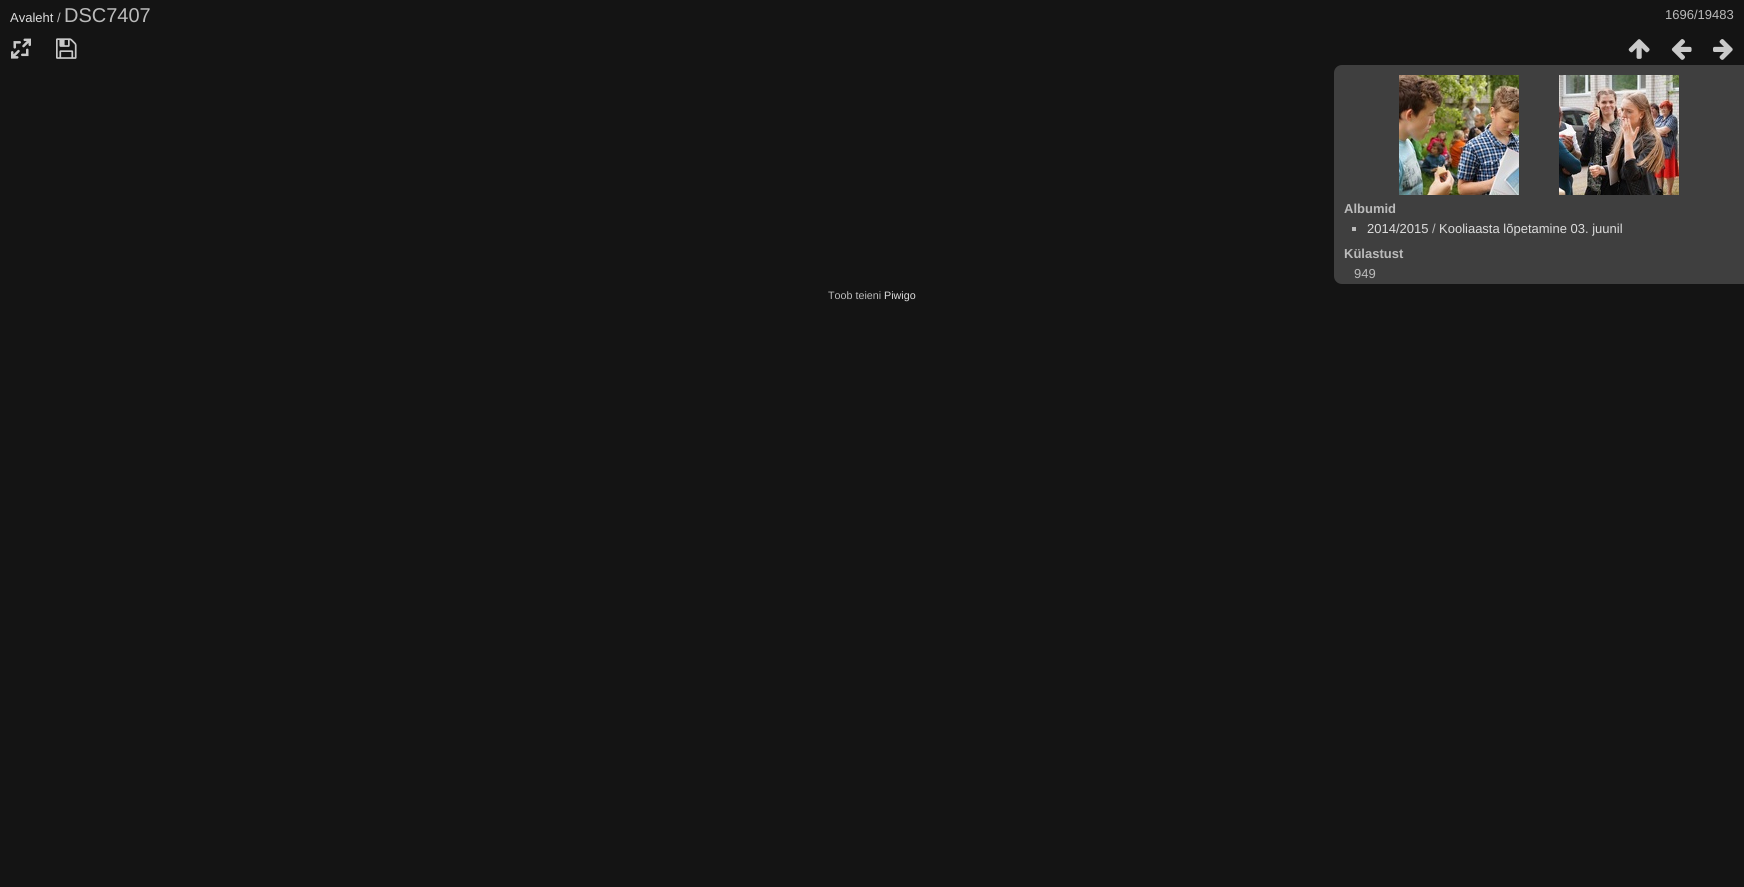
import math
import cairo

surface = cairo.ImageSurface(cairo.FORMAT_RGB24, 1744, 887)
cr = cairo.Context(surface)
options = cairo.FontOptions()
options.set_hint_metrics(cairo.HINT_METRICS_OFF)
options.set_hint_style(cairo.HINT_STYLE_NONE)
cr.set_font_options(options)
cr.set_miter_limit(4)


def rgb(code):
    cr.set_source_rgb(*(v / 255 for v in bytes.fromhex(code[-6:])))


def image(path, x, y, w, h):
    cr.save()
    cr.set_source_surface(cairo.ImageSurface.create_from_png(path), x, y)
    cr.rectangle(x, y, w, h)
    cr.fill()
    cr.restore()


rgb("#141414")
cr.paint()
image("img/1.png", 11, 38, 20, 21)
image("img/2.png", 56, 38, 21, 21)
image("img/3.png", 1628, 39, 22, 20)
image("img/4.png", 1671, 39, 21, 21)
image("img/5.png", 1713, 39, 20, 21)
rgb("#3f3f3f")
cr.new_path()
cr.move_to(1342, 65)
cr.line_to(1744, 65)
cr.line_to(1744, 284)
cr.line_to(1342, 284)
cr.curve_to(1337.5, 284, 1334, 280.5, 1334, 276)
cr.line_to(1334, 73)
cr.curve_to(1334, 68.5, 1337.5, 65, 1342, 65)
cr.close_path()
cr.fill()
image("img/6.png", 1399, 75, 120, 120)
image("img/7.png", 1559, 75, 120, 120)
rgb("#bbbbbb")
cr.rectangle(1352, 227, 4, 4)
cr.fill()
cr.select_font_face("Liberation Sans")
cr.set_font_size(13)
rgb("#dddddd")
cr.move_to(10, 22)
cr.show_text("Avaleht")
rgb("#bbbbbb")
cr.move_to(57, 22)
cr.show_text("/")
cr.set_font_size(20)
cr.move_to(64, 22)
cr.show_text("DSC7407")
cr.set_font_size(13)
cr.move_to(1665, 19)
cr.show_text("1696/19483")
cr.select_font_face("Liberation Sans", cairo.FONT_SLANT_NORMAL, cairo.FONT_WEIGHT_BOLD)
cr.move_to(1344, 213)
cr.show_text("Albumid")
cr.select_font_face("Liberation Sans")
rgb("#dddddd")
cr.move_to(1367, 233)
cr.show_text("2014/2015")
rgb("#bbbbbb")
cr.move_to(1432, 233)
cr.show_text("/")
rgb("#dddddd")
cr.move_to(1439, 233)
cr.show_text("Kooliaasta lõpetamine 03. juunil")
cr.select_font_face("Liberation Sans", cairo.FONT_SLANT_NORMAL, cairo.FONT_WEIGHT_BOLD)
rgb("#bbbbbb")
cr.move_to(1344, 258)
cr.show_text("Külastust")
cr.select_font_face("Liberation Sans")
cr.move_to(1354, 278)
cr.show_text("949")
cr.set_font_size(10.75)
cr.move_to(828, 299)
cr.show_text("Toob teieni")
rgb("#dddddd")
cr.move_to(884, 299)
cr.show_text("Piwigo")
surface.write_to_png("page.png")
